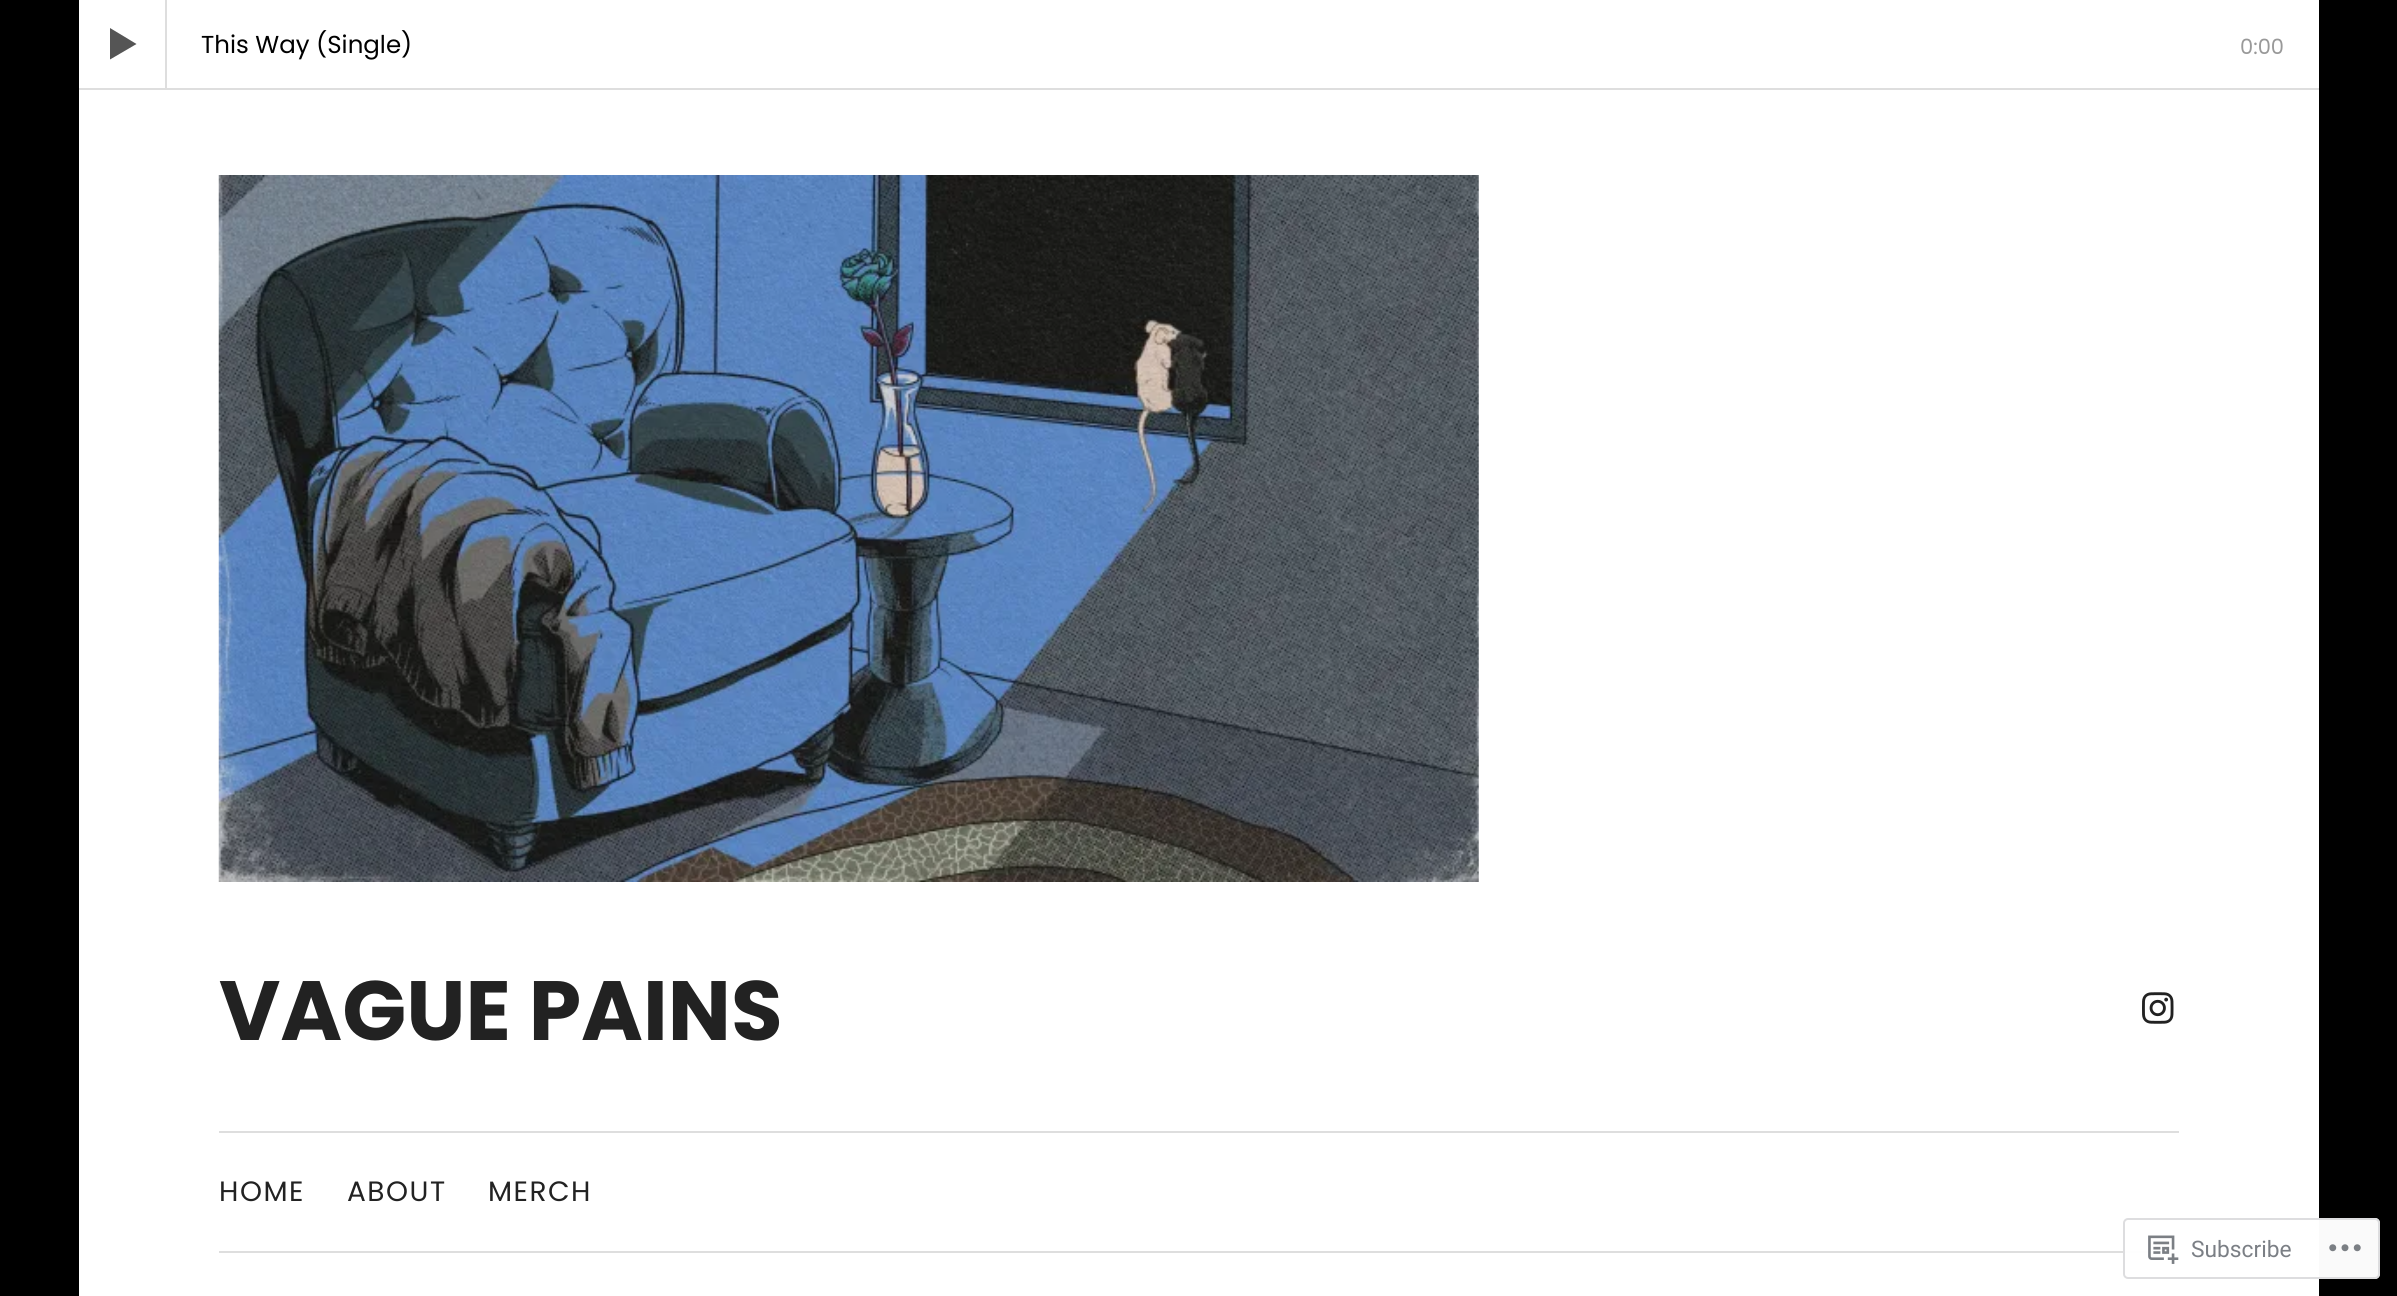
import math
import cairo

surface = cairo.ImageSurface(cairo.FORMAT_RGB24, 2397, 1296)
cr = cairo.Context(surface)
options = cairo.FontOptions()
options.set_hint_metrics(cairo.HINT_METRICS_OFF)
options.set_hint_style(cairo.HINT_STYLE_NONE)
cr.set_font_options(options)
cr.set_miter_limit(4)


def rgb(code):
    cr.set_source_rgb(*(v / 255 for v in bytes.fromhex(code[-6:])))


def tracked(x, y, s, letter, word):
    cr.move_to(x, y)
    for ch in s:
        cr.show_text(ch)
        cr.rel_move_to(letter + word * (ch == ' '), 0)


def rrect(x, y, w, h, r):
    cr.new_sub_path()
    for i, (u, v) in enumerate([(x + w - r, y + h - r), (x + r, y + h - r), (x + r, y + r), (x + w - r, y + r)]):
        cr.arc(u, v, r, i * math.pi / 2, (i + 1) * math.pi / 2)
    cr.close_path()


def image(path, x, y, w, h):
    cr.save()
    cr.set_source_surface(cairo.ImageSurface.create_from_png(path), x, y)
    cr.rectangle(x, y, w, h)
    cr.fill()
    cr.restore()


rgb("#000000")
cr.paint()
rgb("#ffffff")
cr.rectangle(79, 0, 2240, 1296)
cr.fill()
rgb("#dedede")
cr.rectangle(165, 0, 2, 88)
cr.fill()
rgb("#555555")
cr.new_path()
cr.move_to(110, 28)
cr.line_to(110, 59.5)
cr.line_to(136.5, 44)
cr.close_path()
cr.fill()
rgb("#dedede")
cr.rectangle(79, 88, 2240, 2)
cr.fill()
cr.rectangle(219, 1251, 1960, 2)
cr.fill()
image("img/1.png", 218, 175, 1261, 707)
image("img/2.png", 2142, 992, 32, 32)
cr.rectangle(219, 1131, 1960, 2)
cr.fill()
cr.set_source_rgba(1, 1, 1, 0.98)
rrect(2123, 1218, 257, 61, 5)
cr.fill()
rrect(2124, 1219, 255, 59, 4)
cr.set_source_rgba(0.863, 0.863, 0.871, 0.98)
cr.stroke()
image("img/3.png", 2148, 1235, 31, 29)
image("img/4.png", 2329, 1244, 32, 8)
cr.select_font_face("Poppins")
cr.set_font_size(24.5)
rgb("#000000")
cr.move_to(201, 53)
cr.show_text("This Way (Single)")
cr.set_font_size(21)
rgb("#999999")
cr.move_to(2240, 54)
cr.show_text("0:00")
cr.select_font_face("Poppins", cairo.FONT_SLANT_NORMAL, cairo.FONT_WEIGHT_BOLD)
cr.set_font_size(84)
rgb("#222222")
cr.move_to(219, 1040)
cr.show_text("VAGUE PAINS")
cr.select_font_face("Poppins")
cr.set_font_size(28)
for x, y, s in [
    (219, 1201, "HOME"),
    (347, 1201, "ABOUT"),
    (488, 1201, "MERCH"),
]:
    tracked(x, y, s, 1.5, 0)
cr.select_font_face("Roboto")
cr.set_font_size(22.75)
rgb("#7b7f85")
cr.move_to(2191, 1257)
cr.show_text("Subscribe")
surface.write_to_png("page.png")
